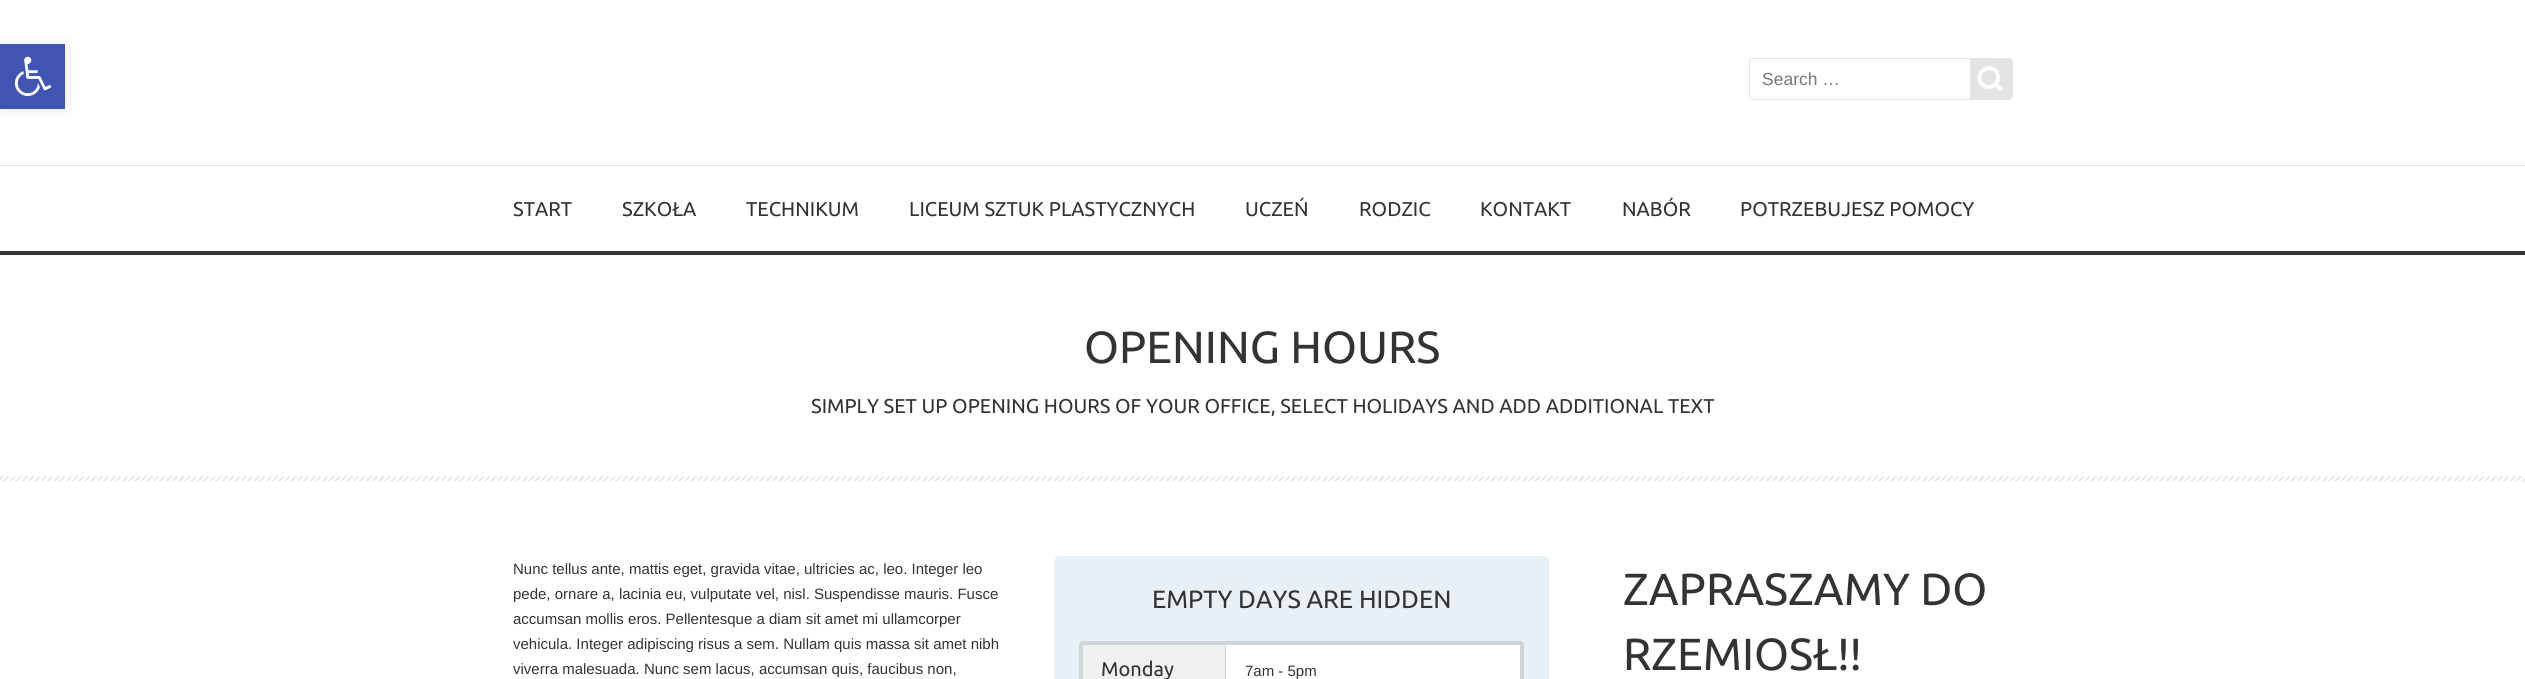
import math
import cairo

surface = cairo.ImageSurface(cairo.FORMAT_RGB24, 2525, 679)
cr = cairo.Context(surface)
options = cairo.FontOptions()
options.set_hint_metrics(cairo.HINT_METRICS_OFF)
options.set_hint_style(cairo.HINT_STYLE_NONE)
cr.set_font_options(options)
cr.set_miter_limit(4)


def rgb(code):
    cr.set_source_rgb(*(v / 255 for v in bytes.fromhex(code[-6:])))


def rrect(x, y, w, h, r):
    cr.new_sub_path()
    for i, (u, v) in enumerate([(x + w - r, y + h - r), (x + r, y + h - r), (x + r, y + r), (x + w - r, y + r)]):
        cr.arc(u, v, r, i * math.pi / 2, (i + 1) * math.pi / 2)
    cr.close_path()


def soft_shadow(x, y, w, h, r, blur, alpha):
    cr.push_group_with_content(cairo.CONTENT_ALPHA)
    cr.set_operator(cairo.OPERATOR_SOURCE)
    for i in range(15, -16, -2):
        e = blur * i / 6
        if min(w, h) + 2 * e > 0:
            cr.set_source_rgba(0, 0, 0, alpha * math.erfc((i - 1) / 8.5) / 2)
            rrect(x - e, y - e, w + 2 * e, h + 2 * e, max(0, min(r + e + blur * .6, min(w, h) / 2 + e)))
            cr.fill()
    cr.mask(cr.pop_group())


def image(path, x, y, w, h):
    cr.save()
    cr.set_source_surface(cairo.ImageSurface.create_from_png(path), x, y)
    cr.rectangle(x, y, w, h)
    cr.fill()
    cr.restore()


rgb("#ffffff")
cr.paint()
rgb("#000000")
soft_shadow(0, 44, 65, 65, 0, 6, 0.1)
rgb("#4054b2")
cr.rectangle(0, 44, 65, 65)
cr.fill()
image("img/1.png", 14, 56, 38, 40)
rgb("#333333")
cr.rectangle(0, 251, 2525, 4)
cr.fill()
cr.new_path()
cr.move_to(1753, 58.5)
cr.line_to(1970.5, 58.5)
cr.line_to(1970.5, 99.5)
cr.line_to(1753, 99.5)
cr.curve_to(1751, 99.5, 1749.5, 98, 1749.5, 96)
cr.line_to(1749.5, 62)
cr.curve_to(1749.5, 60, 1751, 58.5, 1753, 58.5)
cr.close_path()
rgb("#e2e3e4")
cr.set_line_width(1)
cr.stroke()
cr.new_path()
cr.move_to(1970, 58)
cr.line_to(2009, 58)
cr.curve_to(2011, 58, 2013, 60, 2013, 62)
cr.line_to(2013, 96)
cr.curve_to(2013, 98, 2011, 100, 2009, 100)
cr.line_to(1970, 100)
cr.close_path()
cr.fill()
image("img/2.png", 1977, 58, 26, 34)
cr.rectangle(0, 165, 2525, 1)
cr.fill()
image("img/3.png", 0, 476, 2525, 6)
rgb("#e9f0f5")
rrect(1054, 556, 495, 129, 6)
cr.fill()
rgb("#ced4d8")
rrect(1079, 641, 445, 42, 4)
cr.fill()
rgb("#eff0f0")
cr.rectangle(1083, 645, 142, 34)
cr.fill()
rgb("#ffffff")
cr.rectangle(1226, 645, 294, 34)
cr.fill()
cr.select_font_face("Liberation Sans")
cr.set_font_size(17.5)
rgb("#757575")
cr.move_to(1762, 85)
cr.show_text("Search …")
cr.select_font_face("Ubuntu")
cr.set_font_size(20)
rgb("#333333")
for x, y, s in [
    (513, 216, "START"),
    (622, 216, "SZKOŁA"),
    (746, 216, "TECHNIKUM"),
    (909, 216, "LICEUM SZTUK PLASTYCZNYCH"),
    (1245, 216, "UCZEŃ"),
    (1359, 216, "RODZIC"),
    (1480, 216, "KONTAKT"),
    (1622, 216, "NABÓR"),
    (1740, 216, "POTRZEBUJESZ POMOCY"),
]:
    cr.move_to(x, y)
    cr.show_text(s)
cr.set_font_size(45)
cr.move_to(1084, 363)
cr.show_text("OPENING HOURS")
cr.set_font_size(20)
cr.move_to(811, 413)
cr.show_text("SIMPLY SET UP OPENING HOURS OF YOUR OFFICE, SELECT HOLIDAYS AND ADD ADDITIONAL TEXT")
cr.select_font_face("Liberation Sans")
cr.set_font_size(15)
for x, y, s in [
    (513, 574, "Nunc tellus ante, mattis eget, gravida vitae, ultricies ac, leo. Integer leo"),
    (513, 599, "pede, ornare a, lacinia eu, vulputate vel, nisl. Suspendisse mauris. Fusce"),
    (513, 624, "accumsan mollis eros. Pellentesque a diam sit amet mi ullamcorper"),
    (513, 649, "vehicula. Integer adipiscing risus a sem. Nullam quis massa sit amet nibh"),
    (513, 674, "viverra malesuada. Nunc sem lacus, accumsan quis, faucibus non,"),
]:
    cr.move_to(x, y)
    cr.show_text(s)
cr.select_font_face("Ubuntu")
cr.set_font_size(25)
cr.move_to(1152, 608)
cr.show_text("EMPTY DAYS ARE HIDDEN")
cr.set_font_size(20)
cr.move_to(1101, 676)
cr.show_text("Monday")
cr.select_font_face("Liberation Sans")
cr.set_font_size(15)
cr.move_to(1245, 676)
cr.show_text("7am - 5pm")
cr.select_font_face("Ubuntu")
cr.set_font_size(45)
cr.move_to(1623, 605)
cr.show_text("ZAPRASZAMY DO")
cr.move_to(1623, 670)
cr.show_text("RZEMIOSŁ!!")
surface.write_to_png("page.png")
